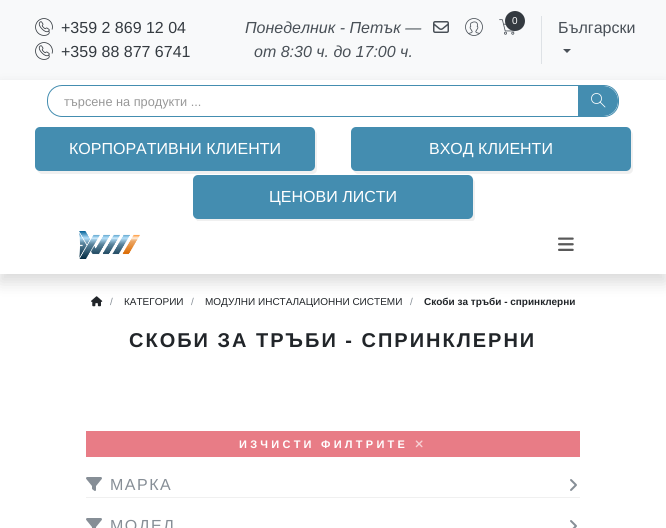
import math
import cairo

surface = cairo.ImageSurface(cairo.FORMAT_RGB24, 666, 528)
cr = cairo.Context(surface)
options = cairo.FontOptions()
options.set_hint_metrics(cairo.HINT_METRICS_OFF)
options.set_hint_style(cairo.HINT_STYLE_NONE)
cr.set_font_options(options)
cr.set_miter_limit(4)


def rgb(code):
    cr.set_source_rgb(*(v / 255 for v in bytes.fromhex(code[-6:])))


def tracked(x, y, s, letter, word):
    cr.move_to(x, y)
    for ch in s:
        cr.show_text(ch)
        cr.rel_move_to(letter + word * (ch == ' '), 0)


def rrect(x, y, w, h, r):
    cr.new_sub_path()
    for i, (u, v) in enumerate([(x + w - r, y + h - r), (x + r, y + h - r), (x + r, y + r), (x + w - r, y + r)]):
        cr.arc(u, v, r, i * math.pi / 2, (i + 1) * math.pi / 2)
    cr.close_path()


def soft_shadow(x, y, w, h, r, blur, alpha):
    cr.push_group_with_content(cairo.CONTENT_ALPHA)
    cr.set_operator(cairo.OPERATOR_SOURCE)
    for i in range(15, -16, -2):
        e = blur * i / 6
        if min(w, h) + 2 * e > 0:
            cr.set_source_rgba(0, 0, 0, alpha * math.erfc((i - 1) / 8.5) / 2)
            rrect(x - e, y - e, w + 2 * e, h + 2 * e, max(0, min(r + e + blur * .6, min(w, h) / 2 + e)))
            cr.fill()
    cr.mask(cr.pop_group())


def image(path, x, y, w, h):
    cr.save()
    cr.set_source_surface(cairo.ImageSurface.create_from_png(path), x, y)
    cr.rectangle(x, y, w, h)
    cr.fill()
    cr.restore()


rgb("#ffffff")
cr.paint()
rgb("#f8f9fa")
cr.rectangle(0, 0, 666, 80)
cr.fill()
image("img/1.png", 35, 18, 18, 18)
image("img/1.png", 35, 42, 18, 18)
rgb("#dee2e6")
cr.rectangle(541, 16, 1, 48)
cr.fill()
image("img/2.png", 433, 21, 16, 12)
image("img/3.png", 465, 18, 18, 18)
image("img/4.png", 499, 19, 16, 16)
rgb("#343a40")
cr.arc(515, 21, 10, 0, 2 * math.pi)
cr.fill()
rgb("#495057")
cr.new_path()
cr.move_to(563, 49)
cr.line_to(571, 49)
cr.line_to(567, 53)
cr.close_path()
cr.fill()
image("img/7.png", 91, 296, 12, 11)
cr.save()
cr.set_fill_rule(cairo.FILL_RULE_EVEN_ODD)
cr.new_path()
cr.move_to(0, 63)
cr.line_to(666, 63)
cr.line_to(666, 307)
cr.line_to(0, 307)
cr.close_path()
cr.move_to(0, 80)
cr.line_to(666, 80)
cr.line_to(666, 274)
cr.line_to(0, 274)
cr.close_path()
cr.clip()
rgb("#000000")
soft_shadow(0, 88, 666, 194, 0, 8, 0.15)
cr.restore()
rrect(47.5, 85.5, 571, 31, 14.5)
rgb("#448db0")
cr.set_line_width(1)
cr.stroke()
cr.new_path()
cr.move_to(578, 86)
cr.line_to(603, 86)
cr.curve_to(611.5, 86, 618, 92.5, 618, 101)
cr.curve_to(618, 109.5, 611.5, 116, 603, 116)
cr.line_to(578, 116)
cr.close_path()
cr.fill()
cr.new_path()
cr.move_to(600, 102)
cr.line_to(605, 107)
rgb("#ffffff")
cr.set_line_width(0.8)
cr.set_line_cap(cairo.LINE_CAP_ROUND)
cr.set_line_join(cairo.LINE_JOIN_ROUND)
cr.stroke()
cr.arc(596.5, 98.5, 5, 0, 2 * math.pi)
cr.set_line_cap(cairo.LINE_CAP_BUTT)
cr.set_line_join(cairo.LINE_JOIN_MITER)
cr.stroke()
rgb("#f0f0f0")
cr.new_path()
cr.move_to(37, 170)
cr.curve_to(38, 172, 40, 174, 42, 174)
cr.line_to(312, 174)
cr.curve_to(315, 174, 317, 172, 317, 169)
cr.line_to(317, 135)
cr.curve_to(317, 133, 316, 132, 315, 131)
cr.line_to(315, 155)
cr.curve_to(315, 159, 317, 171, 310, 171)
cr.line_to(40, 171)
cr.close_path()
cr.fill()
rgb("#448db0")
rrect(35, 127, 280, 44, 5)
cr.fill()
rgb("#f0f0f0")
cr.new_path()
cr.move_to(353, 170)
cr.curve_to(354, 172, 356, 174, 358, 174)
cr.line_to(628, 174)
cr.curve_to(631, 174, 633, 172, 633, 169)
cr.line_to(633, 135)
cr.curve_to(633, 133, 632, 132, 631, 131)
cr.line_to(631, 155)
cr.curve_to(631, 159, 633, 171, 626, 171)
cr.line_to(356, 171)
cr.close_path()
cr.fill()
rgb("#448db0")
rrect(351, 127, 280, 44, 5)
cr.fill()
rgb("#f0f0f0")
cr.new_path()
cr.move_to(195, 218)
cr.curve_to(196, 220, 198, 222, 200, 222)
cr.line_to(470, 222)
cr.curve_to(473, 222, 475, 220, 475, 217)
cr.line_to(475, 183)
cr.curve_to(475, 181, 474, 180, 473, 179)
cr.line_to(473, 203)
cr.curve_to(473, 207, 475, 219, 468, 219)
cr.line_to(198, 219)
cr.close_path()
cr.fill()
rgb("#448db0")
rrect(193, 175, 280, 44, 5)
cr.fill()
rgb("#ffffff")
cr.rectangle(198, 221, 275, 1)
cr.fill()
image("img/5.png", 79, 231, 61, 28)
image("img/6.png", 558, 237, 16, 14)
rgb("#e87c86")
cr.rectangle(86, 431, 494, 26)
cr.fill()
image("img/8.png", 415, 440, 8, 8)
rgb("#f0f0f0")
cr.rectangle(86, 497, 494, 1)
cr.fill()
image("img/9.png", 86, 477, 16, 14)
image("img/10.png", 570, 479, 7, 12)
image("img/11.png", 86, 518, 16, 10)
image("img/12.png", 570, 520, 7, 8)
cr.select_font_face("Liberation Sans")
cr.set_font_size(16)
rgb("#343a40")
cr.move_to(61, 33)
cr.show_text("+359 2 869 12 04")
cr.move_to(61, 57)
cr.show_text("+359 88 877 6741")
cr.select_font_face("Liberation Sans", cairo.FONT_SLANT_ITALIC)
rgb("#495057")
cr.move_to(245, 33)
cr.show_text("Понеделник - Петък —")
cr.move_to(254, 57)
cr.show_text("от 8:30 ч. до 17:00 ч.")
cr.select_font_face("Liberation Sans")
cr.set_font_size(10)
rgb("#ffffff")
cr.move_to(512, 24)
cr.show_text("0")
cr.set_font_size(16)
rgb("#495057")
cr.move_to(558, 33)
cr.show_text("Български")
cr.set_font_size(12.75)
rgb("#989898")
cr.move_to(64, 106)
cr.show_text("търсене на продукти ...")
cr.set_font_size(16)
rgb("#ffffff")
for x, y, s in [
    (69, 154, "КОРПОРАТИВНИ КЛИЕНТИ"),
    (429, 154, "ВХОД КЛИЕНТИ"),
    (269, 202, "ЦЕНОВИ ЛИСТИ"),
]:
    cr.move_to(x, y)
    cr.show_text(s)
cr.set_font_size(10)
rgb("#868e96")
cr.move_to(110, 305)
cr.show_text("/")
rgb("#212529")
cr.move_to(124, 305)
cr.show_text("КАТЕГОРИИ")
rgb("#868e96")
cr.move_to(191, 305)
cr.show_text("/")
rgb("#212529")
cr.move_to(205, 305)
cr.show_text("МОДУЛНИ ИНСТАЛАЦИОННИ СИСТЕМИ")
rgb("#868e96")
cr.move_to(410, 305)
cr.show_text("/")
cr.select_font_face("Liberation Sans", cairo.FONT_SLANT_NORMAL, cairo.FONT_WEIGHT_BOLD)
rgb("#212529")
cr.move_to(424, 305)
cr.show_text("Скоби за тръби - спринклерни")
cr.set_font_size(20)
tracked(129, 347, "СКОБИ ЗА ТРЪБИ - СПРИНКЛЕРНИ", 2, 0)
cr.set_font_size(11)
rgb("#ffffff")
tracked(239, 448, "ИЗЧИСТИ ФИЛТРИТЕ", 3.25, 0)
cr.select_font_face("Liberation Sans")
cr.set_font_size(16)
rgb("#868e96")
tracked(110, 490, "МАРКА", 1.5, 0)
tracked(110, 531, "МОДЕЛ", 1.5, 0)
surface.write_to_png("page.png")
